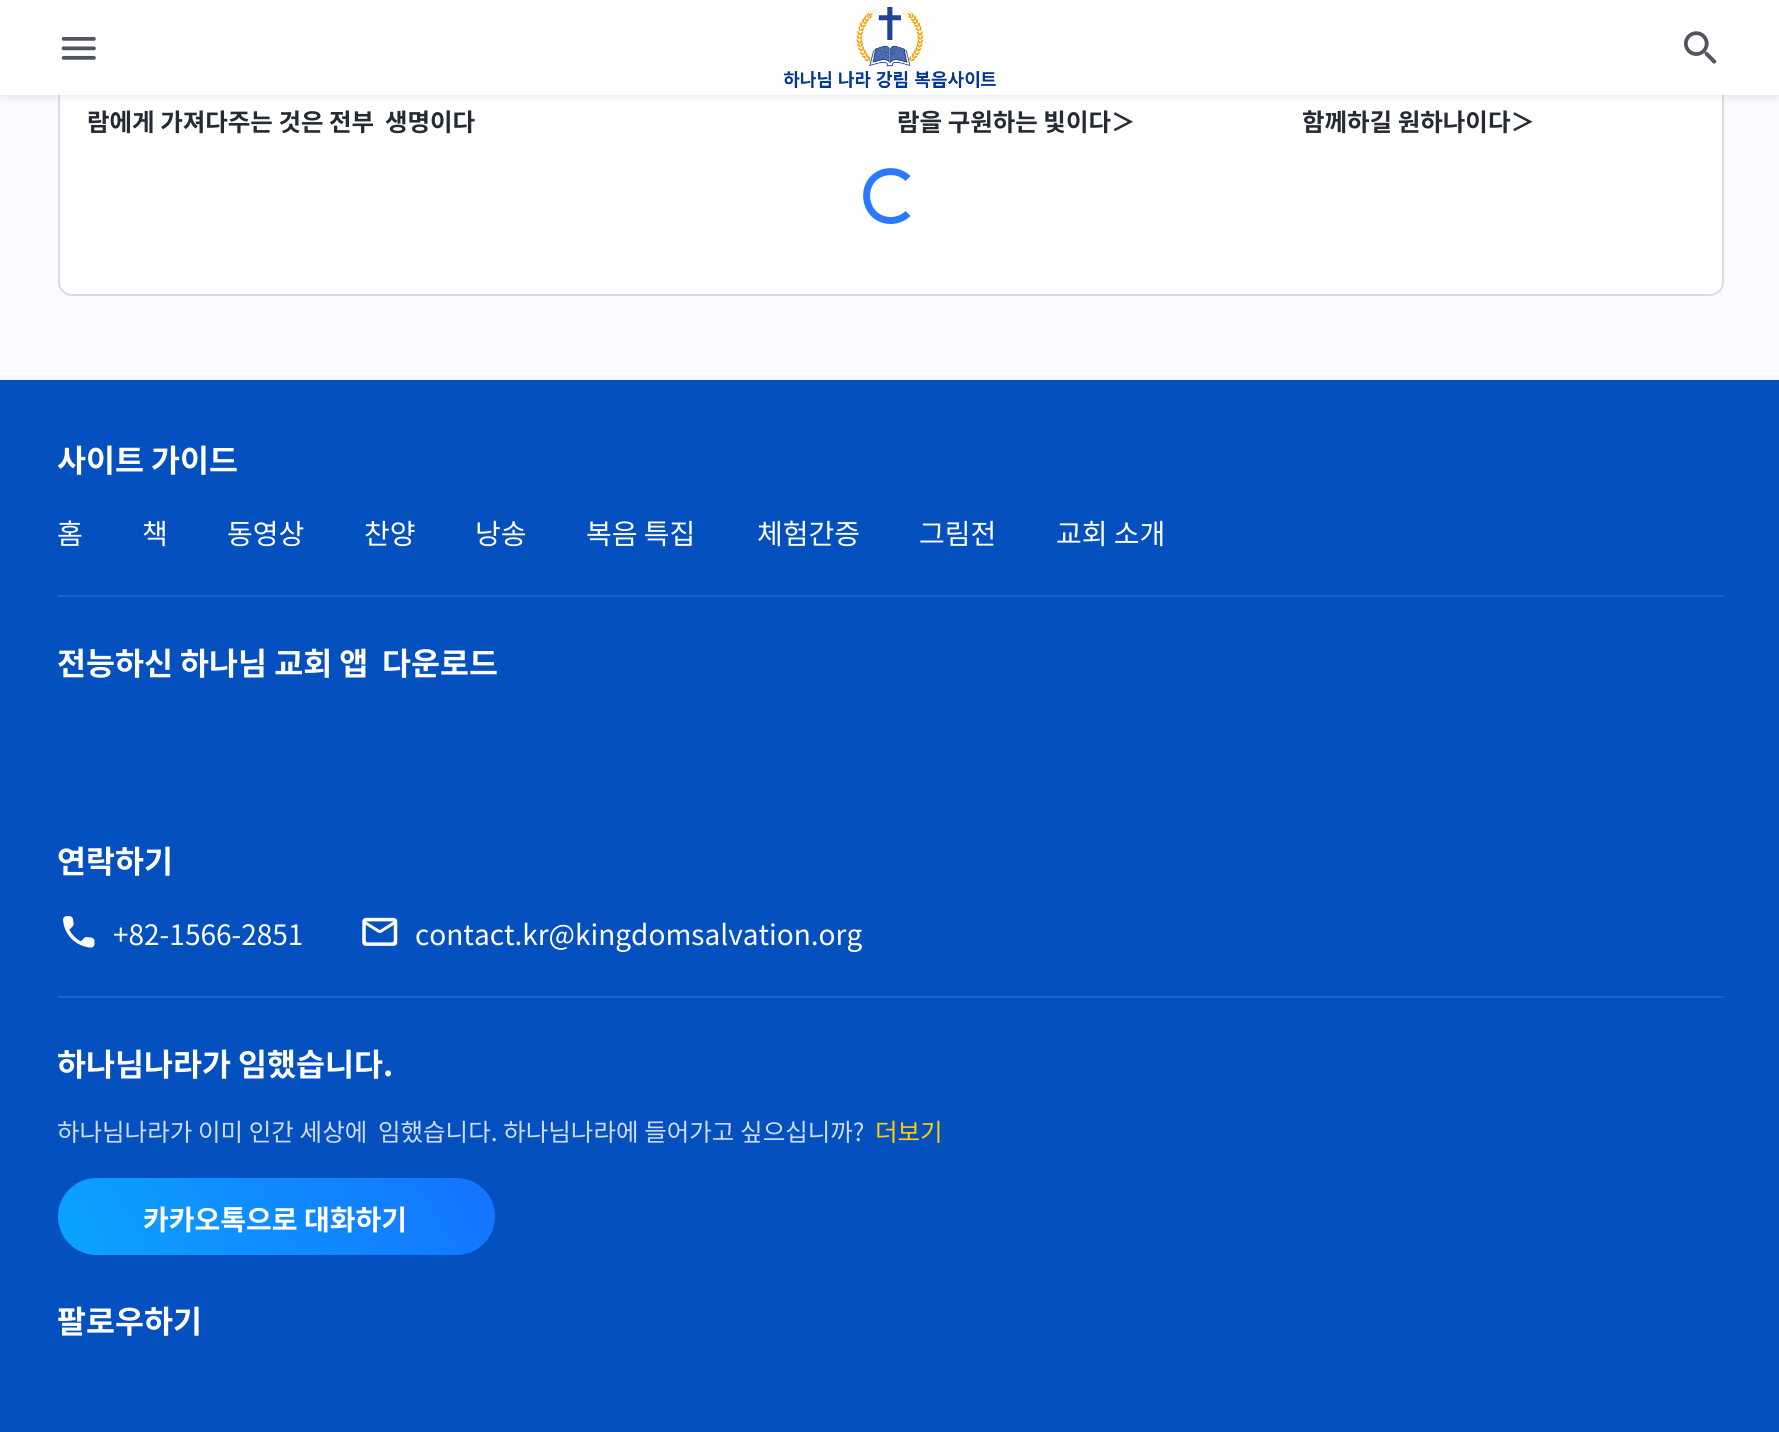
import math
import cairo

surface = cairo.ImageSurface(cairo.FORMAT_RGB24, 1779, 1432)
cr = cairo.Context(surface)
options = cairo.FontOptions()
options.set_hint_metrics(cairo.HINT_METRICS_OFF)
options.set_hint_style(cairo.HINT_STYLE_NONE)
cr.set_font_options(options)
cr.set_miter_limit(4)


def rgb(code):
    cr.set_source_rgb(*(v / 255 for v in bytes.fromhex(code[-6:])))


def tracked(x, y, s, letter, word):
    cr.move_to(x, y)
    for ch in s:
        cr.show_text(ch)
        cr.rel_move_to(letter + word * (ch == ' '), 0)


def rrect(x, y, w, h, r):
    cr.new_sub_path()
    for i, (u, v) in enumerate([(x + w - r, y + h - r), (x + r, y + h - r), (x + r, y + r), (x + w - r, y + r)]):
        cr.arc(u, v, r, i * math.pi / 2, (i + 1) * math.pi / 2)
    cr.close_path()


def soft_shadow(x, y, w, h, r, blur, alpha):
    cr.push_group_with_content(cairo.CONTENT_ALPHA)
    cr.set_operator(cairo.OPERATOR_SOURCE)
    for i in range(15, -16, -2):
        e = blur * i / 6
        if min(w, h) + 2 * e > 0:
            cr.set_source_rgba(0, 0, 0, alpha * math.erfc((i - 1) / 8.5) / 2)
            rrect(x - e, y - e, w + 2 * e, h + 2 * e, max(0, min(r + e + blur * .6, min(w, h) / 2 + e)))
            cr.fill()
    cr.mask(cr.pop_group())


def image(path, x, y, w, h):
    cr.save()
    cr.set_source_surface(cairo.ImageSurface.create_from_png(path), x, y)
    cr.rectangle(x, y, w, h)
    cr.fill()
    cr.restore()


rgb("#fafaff")
cr.paint()
rgb("#ffffff")
rrect(59, -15, 1664, 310, 13)
cr.fill_preserve()
rgb("#dadce0")
cr.stroke()
rgb("#000000")
soft_shadow(0, 2, 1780, 94, 0, 5, 0.11)
rgb("#ffffff")
cr.rectangle(0, 0, 1779, 95)
cr.fill()
image("img/1.png", 61, 37, 35, 23)
image("img/2.png", 784, 7, 212, 81)
image("img/3.png", 1683, 31, 34, 33)
cr.new_path()
cr.move_to(908, 213.5)
cr.curve_to(903.5, 218, 897, 220.5, 891, 220.5)
cr.curve_to(861.5, 220.5, 857.5, 177.5, 886, 172)
cr.curve_to(894, 170.5, 902.5, 173, 908, 178.5)
rgb("#2b79ff")
cr.set_line_width(7)
cr.stroke()
for x, y, w, h, color in [
    (0, 380, 1779, 1052, "#0550bf"),
    (58, 595, 1666, 2, "#1e62c5"),
    (58, 996, 1666, 2, "#1e62c5"),
]:
    rgb(color)
    cr.rectangle(x, y, w, h)
    cr.fill()
image("img/4.png", 63, 916, 32, 32)
image("img/5.png", 362, 917, 36, 29)
gradient = cairo.LinearGradient(96, 1321, 457, 1112)
gradient.add_color_stop_rgba(0, 0.039, 0.643, 1, 1)
gradient.add_color_stop_rgba(1, 0.082, 0.451, 1, 1)
cr.set_source(gradient)
rrect(58, 1178, 437, 77, 38.5)
cr.fill()
cr.select_font_face("Noto Sans KR", cairo.FONT_SLANT_NORMAL, cairo.FONT_WEIGHT_BOLD)
cr.set_font_size(24.5)
rgb("#262b33")
for x, y, s in [
    (87, 131, "람에게 가져다주는 것은 전부"),
    (385, 131, "생명이다"),
    (897, 131, "람을 구원하는 빛이다＞"),
    (1302, 131, "함께하길 원하나이다＞"),
]:
    cr.move_to(x, y)
    cr.show_text(s)
cr.set_font_size(31.5)
rgb("#ffffff")
cr.move_to(57, 472)
cr.show_text("사이트 가이드")
cr.select_font_face("Noto Sans KR")
cr.set_font_size(28)
for x, y, s in [
    (57, 544, "홈"),
    (142, 544, "책"),
    (227, 544, "동영상"),
    (364, 544, "찬양"),
    (475, 544, "낭송"),
    (586, 544, "복음 특집"),
    (757, 544, "체험간증"),
    (919, 544, "그림전"),
    (1056, 544, "교회 소개"),
]:
    cr.move_to(x, y)
    cr.show_text(s)
cr.select_font_face("Noto Sans KR", cairo.FONT_SLANT_NORMAL, cairo.FONT_WEIGHT_BOLD)
cr.set_font_size(31.5)
cr.move_to(57, 675)
cr.show_text("전능하신 하나님 교회 앱")
cr.move_to(382, 675)
cr.show_text("다운로드")
cr.move_to(57, 873)
cr.show_text("연락하기")
cr.select_font_face("Noto Sans KR")
cr.set_font_size(28)
cr.move_to(113, 945)
cr.show_text("+82-1566-2851")
cr.move_to(415, 945)
cr.show_text("contact.kr@kingdomsalvation.org")
cr.select_font_face("Noto Sans KR", cairo.FONT_SLANT_NORMAL, cairo.FONT_WEIGHT_BOLD)
cr.set_font_size(31.5)
cr.move_to(57, 1076)
cr.show_text("하나님나라가 임했습니다.")
cr.select_font_face("Noto Sans KR")
cr.set_font_size(24.5)
rgb("#cddcf2")
tracked(57, 1141, "하나님나라가 이미 인간 세상에", 0, 0.25)
tracked(378, 1141, "임했습니다. 하나님나라에 들어가고 싶으십니까?", 0, 0.25)
rgb("#ffd000")
cr.move_to(875, 1141)
cr.show_text("더보기")
cr.select_font_face("Noto Sans KR", cairo.FONT_SLANT_NORMAL, cairo.FONT_WEIGHT_BOLD)
cr.set_font_size(28)
rgb("#ffffff")
cr.move_to(143, 1230)
cr.show_text("카카오톡으로 대화하기")
cr.set_font_size(31.5)
cr.move_to(57, 1333)
cr.show_text("팔로우하기")
surface.write_to_png("page.png")
